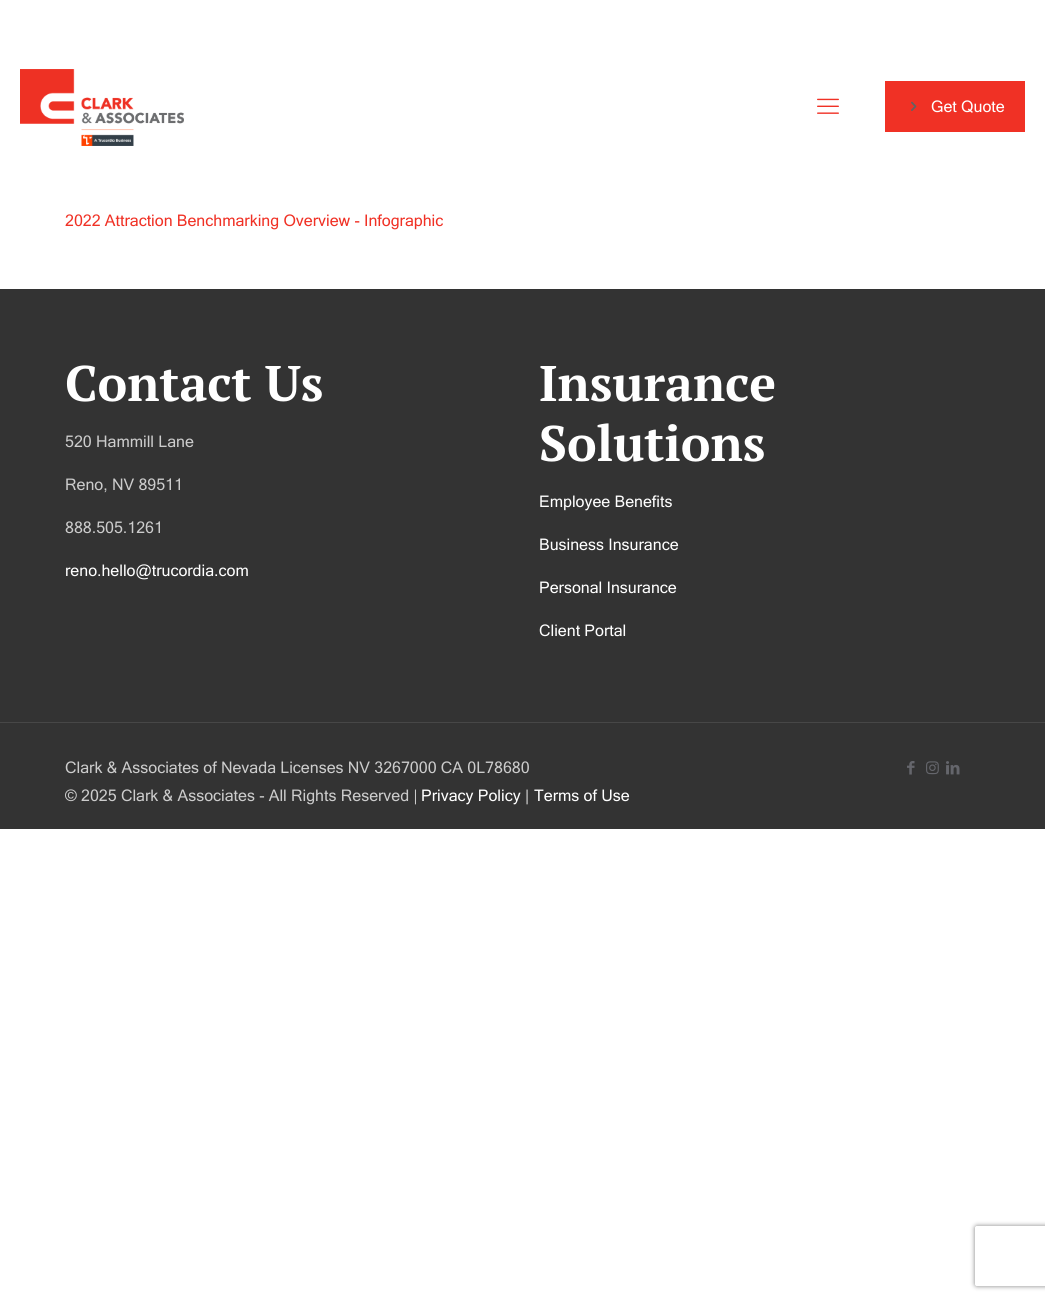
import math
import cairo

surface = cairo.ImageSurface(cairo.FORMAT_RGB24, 1045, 1300)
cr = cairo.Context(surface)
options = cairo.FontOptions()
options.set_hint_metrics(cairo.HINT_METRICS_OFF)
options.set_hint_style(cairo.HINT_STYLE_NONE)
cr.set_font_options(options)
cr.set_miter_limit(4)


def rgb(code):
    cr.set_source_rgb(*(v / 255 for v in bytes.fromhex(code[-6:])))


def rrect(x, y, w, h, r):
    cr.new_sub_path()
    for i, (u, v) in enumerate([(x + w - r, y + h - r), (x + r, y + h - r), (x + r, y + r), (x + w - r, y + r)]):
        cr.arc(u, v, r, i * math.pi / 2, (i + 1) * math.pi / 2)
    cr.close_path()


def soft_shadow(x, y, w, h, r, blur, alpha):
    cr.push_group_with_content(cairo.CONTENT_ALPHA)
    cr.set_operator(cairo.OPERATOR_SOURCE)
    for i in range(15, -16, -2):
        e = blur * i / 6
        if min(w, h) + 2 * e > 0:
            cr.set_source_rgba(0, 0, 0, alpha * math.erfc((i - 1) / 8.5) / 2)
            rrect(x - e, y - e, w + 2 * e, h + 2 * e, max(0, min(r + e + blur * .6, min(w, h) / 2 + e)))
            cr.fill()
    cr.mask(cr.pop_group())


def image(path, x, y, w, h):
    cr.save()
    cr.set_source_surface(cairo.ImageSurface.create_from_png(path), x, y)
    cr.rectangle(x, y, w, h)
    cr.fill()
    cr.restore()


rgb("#ffffff")
cr.paint()
image("img/1.png", 20, 69, 164, 77)
image("img/2.png", 817, 98, 22, 16)
rgb("#f03125")
cr.rectangle(885, 81, 140, 51)
cr.fill()
image("img/3.png", 911, 101, 6, 10)
rgb("#333333")
cr.rectangle(0, 289, 1045, 540)
cr.fill()
rgb("#474747")
cr.rectangle(0, 722, 1045, 1)
cr.fill()
image("img/4.png", 907, 761, 8, 14)
image("img/5.png", 926, 761, 13, 14)
image("img/6.png", 946, 761, 14, 14)
cr.save()
cr.set_fill_rule(cairo.FILL_RULE_EVEN_ODD)
cr.new_path()
cr.move_to(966, 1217)
cr.line_to(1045, 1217)
cr.line_to(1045, 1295)
cr.line_to(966, 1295)
cr.close_path()
cr.move_to(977, 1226)
cr.line_to(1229, 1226)
cr.curve_to(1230, 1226, 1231, 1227, 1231, 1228)
cr.line_to(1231, 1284)
cr.curve_to(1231, 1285, 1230, 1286, 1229, 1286)
cr.line_to(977, 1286)
cr.curve_to(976, 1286, 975, 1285, 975, 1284)
cr.line_to(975, 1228)
cr.curve_to(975, 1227, 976, 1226, 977, 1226)
cr.close_path()
cr.clip()
rgb("#808080")
soft_shadow(975, 1226, 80, 60, 2, 2.5, 1)
cr.restore()
cr.select_font_face("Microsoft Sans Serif")
cr.set_font_size(16)
rgb("#ffffff")
cr.move_to(931, 112)
cr.show_text("Get Quote")
rgb("#f03125")
cr.move_to(65, 226)
cr.show_text("2022 Attraction Benchmarking Overview - Infographic")
cr.select_font_face("PT Serif", cairo.FONT_SLANT_NORMAL, cairo.FONT_WEIGHT_BOLD)
cr.set_font_size(50)
rgb("#ffffff")
cr.move_to(65, 401)
cr.show_text("Contact Us")
cr.select_font_face("Microsoft Sans Serif")
cr.set_font_size(16)
rgb("#cccccc")
for x, y, s in [
    (65, 447, "520 Hammill Lane"),
    (65, 490, "Reno, NV 89511"),
    (65, 533, "888.505.1261"),
]:
    cr.move_to(x, y)
    cr.show_text(s)
rgb("#ffffff")
cr.move_to(65, 576)
cr.show_text("reno.hello@trucordia.com")
cr.select_font_face("PT Serif", cairo.FONT_SLANT_NORMAL, cairo.FONT_WEIGHT_BOLD)
cr.set_font_size(50)
cr.move_to(539, 401)
cr.show_text("Insurance")
cr.move_to(539, 461)
cr.show_text("Solutions")
cr.select_font_face("Microsoft Sans Serif")
cr.set_font_size(16)
for x, y, s in [
    (539, 507, "Employee Benefits"),
    (539, 550, "Business Insurance"),
    (539, 593, "Personal Insurance"),
    (539, 636, "Client Portal"),
]:
    cr.move_to(x, y)
    cr.show_text(s)
rgb("#cccccc")
cr.move_to(65, 773)
cr.show_text("Clark & Associates of Nevada Licenses NV 3267000 CA 0L78680")
cr.move_to(65, 801)
cr.show_text("© 2025 Clark & Associates - All Rights Reserved |")
rgb("#ffffff")
cr.move_to(421, 801)
cr.show_text("Privacy Policy")
rgb("#cccccc")
cr.move_to(525, 801)
cr.show_text("|")
rgb("#ffffff")
cr.move_to(534, 801)
cr.show_text("Terms of Use")
surface.write_to_png("page.png")
